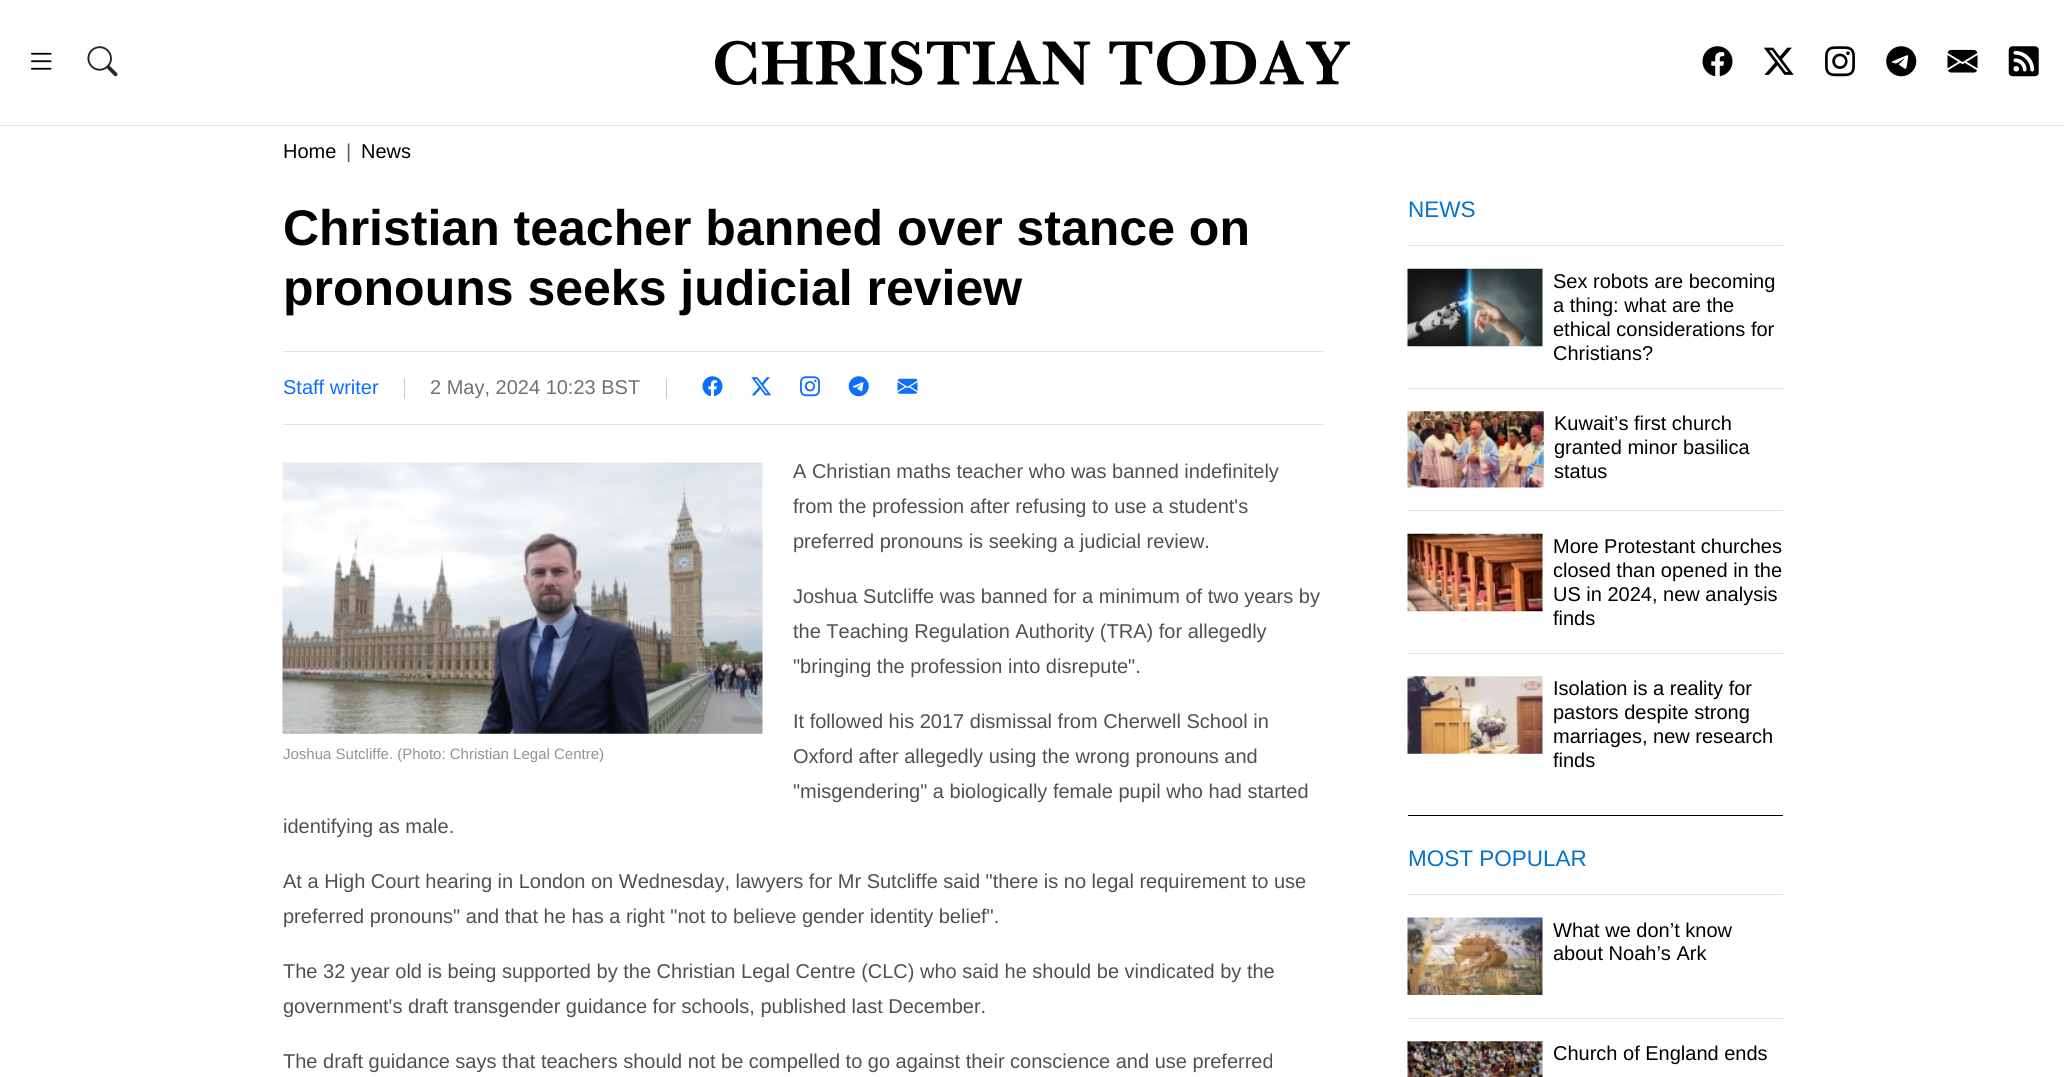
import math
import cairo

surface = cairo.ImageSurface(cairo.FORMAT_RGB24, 2064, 1077)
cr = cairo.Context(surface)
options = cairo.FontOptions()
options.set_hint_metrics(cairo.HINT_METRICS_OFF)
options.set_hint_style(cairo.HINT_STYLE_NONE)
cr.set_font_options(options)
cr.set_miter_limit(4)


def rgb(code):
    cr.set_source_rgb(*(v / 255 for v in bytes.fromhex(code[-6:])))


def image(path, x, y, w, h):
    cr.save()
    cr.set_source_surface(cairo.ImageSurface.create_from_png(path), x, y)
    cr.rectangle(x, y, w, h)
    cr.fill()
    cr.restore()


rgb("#ffffff")
cr.paint()
rgb("#dee2e6")
cr.rectangle(0, 125, 2064, 1)
cr.fill()
image("img/1.png", 715, 40, 635, 46)
image("img/2.png", 31, 52, 21, 18)
image("img/3.png", 87, 46, 31, 31)
image("img/4.png", 1702, 46, 31, 31)
image("img/5.png", 1763, 47, 31, 28)
image("img/6.png", 1825, 46, 30, 31)
image("img/7.png", 1886, 46, 31, 31)
image("img/8.png", 1947, 49, 31, 24)
image("img/9.png", 2008, 46, 31, 31)
for x, y, w, h, color in [
    (283, 351, 1040, 1, "#dee2e6"),
    (283, 424, 1040, 1, "#dee2e6"),
    (404, 379, 1, 20, "#c8c9ca"),
    (666, 379, 1, 20, "#c8c9ca"),
]:
    rgb(color)
    cr.rectangle(x, y, w, h)
    cr.fill()
image("img/10.png", 702, 376, 21, 21)
image("img/11.png", 751, 377, 21, 19)
image("img/12.png", 800, 376, 20, 21)
image("img/13.png", 848, 376, 21, 21)
image("img/14.png", 897, 378, 21, 16)
image("img/15.png", 282, 462, 481, 272)
for x, y, w, h, color in [
    (1408, 815, 375, 1, "#000000"),
    (1408, 245, 375, 1, "#dee2e6"),
    (1408, 388, 375, 1, "#dee2e6"),
]:
    rgb(color)
    cr.rectangle(x, y, w, h)
    cr.fill()
image("img/16.png", 1407, 268, 136, 79)
cr.rectangle(1408, 510, 375, 1)
cr.fill()
image("img/17.png", 1407, 411, 137, 77)
cr.rectangle(1408, 653, 375, 1)
cr.fill()
image("img/18.png", 1407, 533, 136, 79)
image("img/19.png", 1407, 676, 136, 78)
cr.rectangle(1408, 894, 375, 1)
cr.fill()
cr.rectangle(1408, 1018, 375, 1)
cr.fill()
image("img/20.png", 1407, 917, 136, 78)
image("img/21.png", 1407, 1041, 136, 36)
cr.select_font_face("Liberation Sans")
cr.set_font_size(20)
rgb("#000000")
cr.move_to(283, 158)
cr.show_text("Home")
rgb("#595c5f")
cr.move_to(346, 158)
cr.show_text("|")
rgb("#000000")
cr.move_to(361, 158)
cr.show_text("News")
cr.select_font_face("Liberation Sans", cairo.FONT_SLANT_NORMAL, cairo.FONT_WEIGHT_BOLD)
cr.set_font_size(50)
cr.move_to(283, 245)
cr.show_text("Christian teacher banned over stance on")
cr.move_to(283, 305)
cr.show_text("pronouns seeks judicial review")
cr.select_font_face("Liberation Sans")
cr.set_font_size(20)
rgb("#0d6efd")
cr.move_to(283, 394)
cr.show_text("Staff writer")
rgb("#6f7174")
cr.move_to(430, 394)
cr.show_text("2 May, 2024 10:23 BST")
rgb("#4f5053")
for x, y, s in [
    (793, 478, "A Christian maths teacher who was banned indefinitely"),
    (793, 513, "from the profession after refusing to use a student's"),
    (793, 548, "preferred pronouns is seeking a judicial review."),
    (793, 603, "Joshua Sutcliffe was banned for a minimum of two years by"),
    (793, 638, "the Teaching Regulation Authority (TRA) for allegedly"),
    (793, 673, "\"bringing the profession into disrepute\"."),
    (793, 728, "It followed his 2017 dismissal from Cherwell School in"),
    (793, 763, "Oxford after allegedly using the wrong pronouns and"),
    (793, 798, "\"misgendering\" a biologically female pupil who had started"),
    (283, 833, "identifying as male."),
]:
    cr.move_to(x, y)
    cr.show_text(s)
cr.set_font_size(15)
rgb("#909294")
cr.move_to(283, 759)
cr.show_text("Joshua Sutcliffe. (Photo: Christian Legal Centre)")
cr.set_font_size(20)
rgb("#4f5053")
for x, y, s in [
    (283, 888, "At a High Court hearing in London on Wednesday, lawyers for Mr Sutcliffe said \"there is no legal requirement to use"),
    (283, 923, "preferred pronouns\" and that he has a right \"not to believe gender identity belief\"."),
    (283, 978, "The 32 year old is being supported by the Christian Legal Centre (CLC) who said he should be vindicated by the"),
    (283, 1013, "government's draft transgender guidance for schools, published last December."),
    (283, 1068, "The draft guidance says that teachers should not be compelled to go against their conscience and use preferred"),
]:
    cr.move_to(x, y)
    cr.show_text(s)
cr.set_font_size(22.5)
rgb("#0172cd")
cr.move_to(1408, 217)
cr.show_text("NEWS")
cr.set_font_size(20)
rgb("#000000")
for x, y, s in [
    (1553, 288, "Sex robots are becoming"),
    (1553, 312, "a thing: what are the"),
    (1553, 336, "ethical considerations for"),
    (1553, 360, "Christians?"),
    (1554, 430, "Kuwait’s first church"),
    (1554, 454, "granted minor basilica"),
    (1554, 478, "status"),
    (1553, 553, "More Protestant churches"),
    (1553, 577, "closed than opened in the"),
    (1553, 601, "US in 2024, new analysis"),
    (1553, 625, "finds"),
    (1553, 695, "Isolation is a reality for"),
    (1553, 719, "pastors despite strong"),
    (1553, 743, "marriages, new research"),
    (1553, 767, "finds"),
]:
    cr.move_to(x, y)
    cr.show_text(s)
cr.set_font_size(22.5)
rgb("#0172cd")
cr.move_to(1408, 866)
cr.show_text("MOST POPULAR")
cr.set_font_size(20)
rgb("#000000")
for x, y, s in [
    (1553, 937, "What we don’t know"),
    (1553, 960, "about Noah’s Ark"),
    (1553, 1060, "Church of England ends"),
]:
    cr.move_to(x, y)
    cr.show_text(s)
surface.write_to_png("page.png")
